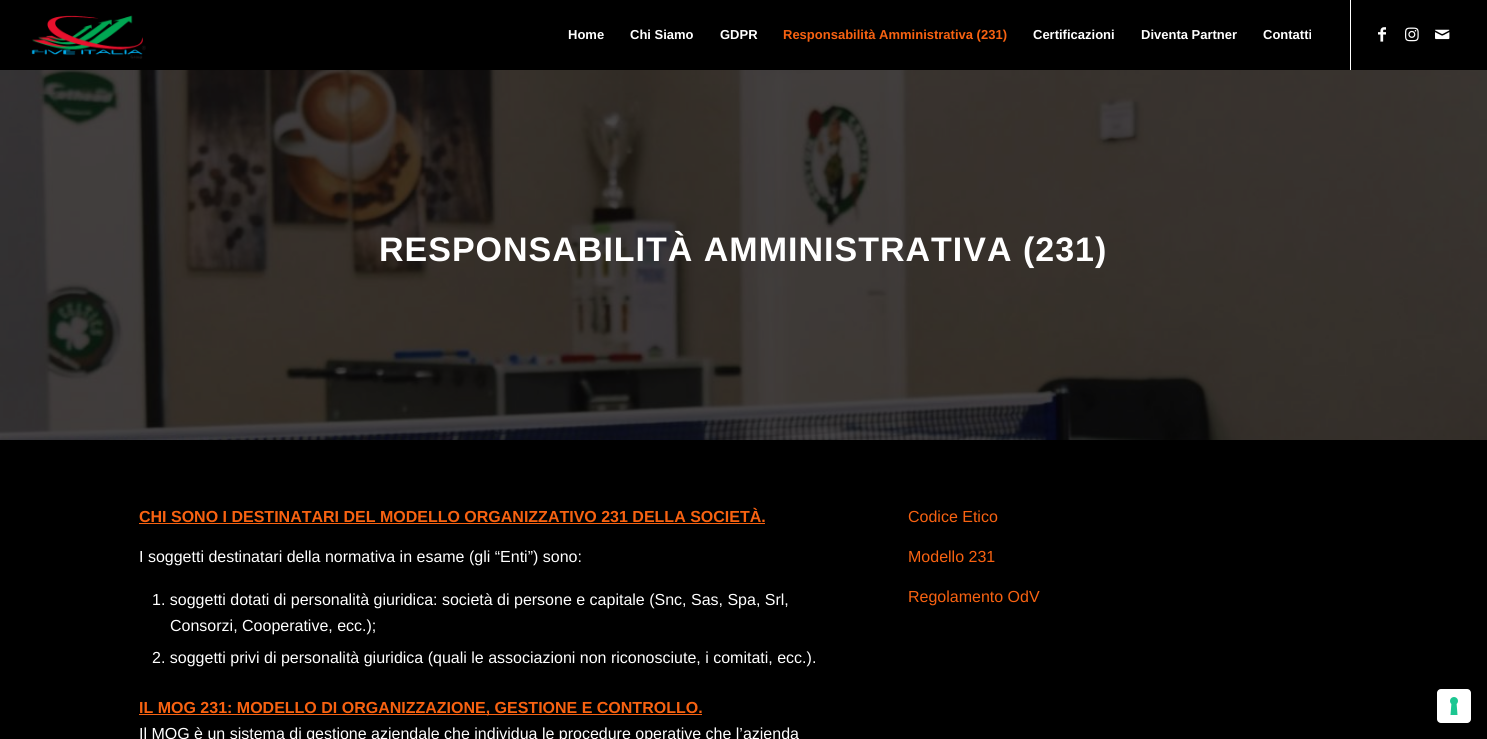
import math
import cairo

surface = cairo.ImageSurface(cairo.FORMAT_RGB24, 1487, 739)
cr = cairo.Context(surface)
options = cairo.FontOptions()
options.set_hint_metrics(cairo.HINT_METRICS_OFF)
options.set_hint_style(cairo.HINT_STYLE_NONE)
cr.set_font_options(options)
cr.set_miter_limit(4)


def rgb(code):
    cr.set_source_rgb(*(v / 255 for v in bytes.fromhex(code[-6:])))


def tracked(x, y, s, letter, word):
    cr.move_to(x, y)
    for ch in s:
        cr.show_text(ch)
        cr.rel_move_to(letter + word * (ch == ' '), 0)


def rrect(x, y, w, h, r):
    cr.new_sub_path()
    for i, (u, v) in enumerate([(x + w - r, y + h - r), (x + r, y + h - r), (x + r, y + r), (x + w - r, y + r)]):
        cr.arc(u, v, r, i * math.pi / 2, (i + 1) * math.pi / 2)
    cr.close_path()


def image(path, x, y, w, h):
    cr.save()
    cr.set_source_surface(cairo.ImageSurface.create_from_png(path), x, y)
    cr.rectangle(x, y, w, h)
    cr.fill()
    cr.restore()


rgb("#000000")
cr.paint()
image("img/1.png", 31, 15, 115, 44)
rgb("#ffffff")
cr.rectangle(1350, 0, 1, 70)
cr.fill()
image("img/2.png", 1378, 27, 8, 15)
image("img/3.png", 1405, 27, 14, 15)
image("img/4.png", 1435, 29, 15, 11)
image("img/5.png", 0, 70, 1487, 370)
rgb("#f86211")
cr.rectangle(139, 523, 626, 1)
cr.fill()
cr.rectangle(139, 714, 563, 1)
cr.fill()
rgb("#ffffff")
rrect(1437, 689, 34, 34, 4)
cr.fill()
image("img/6.png", 1450, 697, 8, 18)
cr.select_font_face("Liberation Sans", cairo.FONT_SLANT_NORMAL, cairo.FONT_WEIGHT_BOLD)
cr.set_font_size(13)
for x, y, s in [
    (568, 39, "Home"),
    (630, 39, "Chi Siamo"),
    (720, 39, "GDPR"),
]:
    cr.move_to(x, y)
    cr.show_text(s)
rgb("#f86211")
cr.move_to(783, 39)
cr.show_text("Responsabilità Amministrativa (231)")
rgb("#ffffff")
for x, y, s in [
    (1033, 39, "Certificazioni"),
    (1141, 39, "Diventa Partner"),
    (1263, 39, "Contatti"),
]:
    cr.move_to(x, y)
    cr.show_text(s)
cr.set_font_size(34)
tracked(379, 261, "RESPONSABILITÀ AMMINISTRATIVA (231)", 1, 0)
cr.set_font_size(16)
rgb("#f86211")
cr.move_to(139, 522)
cr.show_text("CHI SONO I DESTINATARI DEL MODELLO ORGANIZZATIVO 231 DELLA SOCIETÀ.")
cr.select_font_face("Liberation Sans")
rgb("#ffffff")
for x, y, s in [
    (139, 562, "I soggetti destinatari della normativa in esame (gli “Enti”) sono:"),
    (152, 605, "1. soggetti dotati di personalità giuridica: società di persone e capitale (Snc, Sas, Spa, Srl,"),
    (170, 631, "Consorzi, Cooperative, ecc.);"),
    (152, 663, "2. soggetti privi di personalità giuridica (quali le associazioni non riconosciute, i comitati, ecc.)."),
]:
    cr.move_to(x, y)
    cr.show_text(s)
cr.select_font_face("Liberation Sans", cairo.FONT_SLANT_NORMAL, cairo.FONT_WEIGHT_BOLD)
rgb("#f86211")
cr.move_to(139, 713)
cr.show_text("IL MOG 231: MODELLO DI ORGANIZZAZIONE, GESTIONE E CONTROLLO.")
cr.select_font_face("Liberation Sans")
rgb("#ffffff")
cr.move_to(139, 739)
cr.show_text("Il MOG è un sistema di gestione aziendale che individua le procedure operative che l’azienda")
rgb("#f86211")
for x, y, s in [
    (908, 522, "Codice Etico"),
    (908, 562, "Modello 231"),
    (908, 602, "Regolamento OdV"),
]:
    cr.move_to(x, y)
    cr.show_text(s)
surface.write_to_png("page.png")
